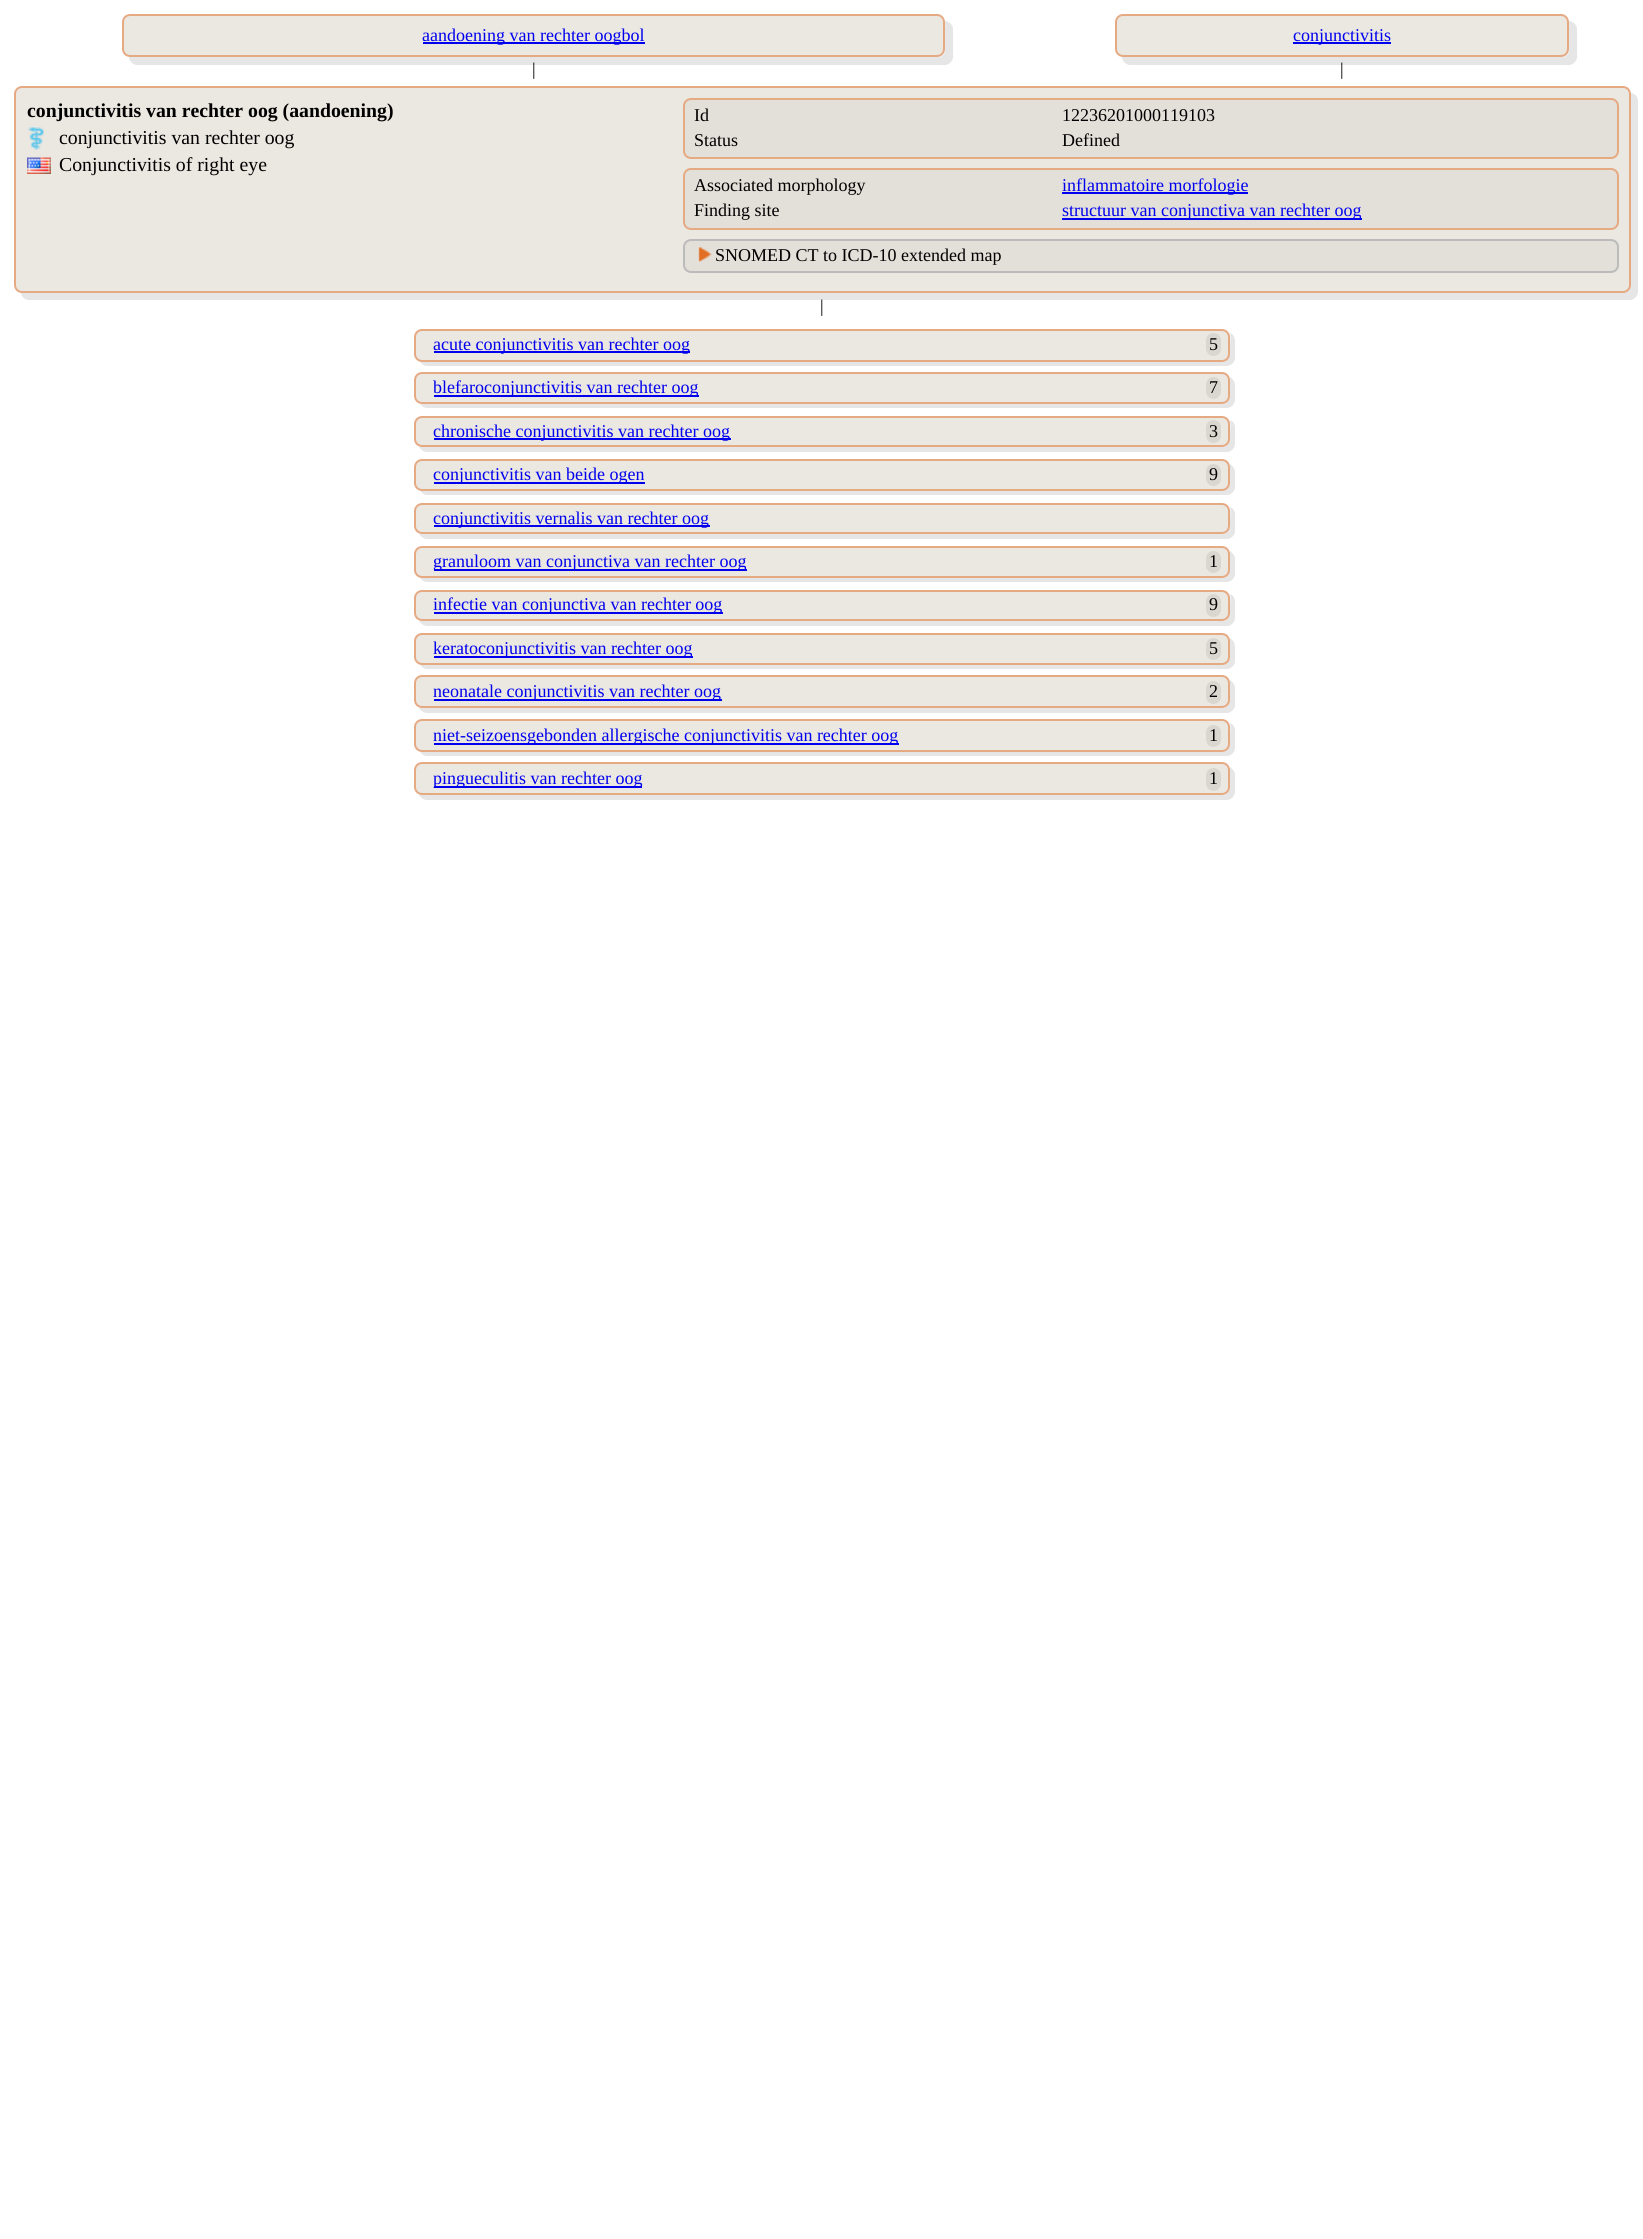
import math
import cairo

surface = cairo.ImageSurface(cairo.FORMAT_RGB24, 1643, 2239)
cr = cairo.Context(surface)
options = cairo.FontOptions()
options.set_hint_metrics(cairo.HINT_METRICS_OFF)
options.set_hint_style(cairo.HINT_STYLE_NONE)
cr.set_font_options(options)
cr.set_miter_limit(4)


def rgb(code):
    cr.set_source_rgb(*(v / 255 for v in bytes.fromhex(code[-6:])))


def rrect(x, y, w, h, r):
    cr.new_sub_path()
    for i, (u, v) in enumerate([(x + w - r, y + h - r), (x + r, y + h - r), (x + r, y + r), (x + w - r, y + r)]):
        cr.arc(u, v, r, i * math.pi / 2, (i + 1) * math.pi / 2)
    cr.close_path()


def image(path, x, y, w, h):
    cr.save()
    cr.set_source_surface(cairo.ImageSurface.create_from_png(path), x, y)
    cr.rectangle(x, y, w, h)
    cr.fill()
    cr.restore()


rgb("#ffffff")
cr.paint()
rgb("#e6e6e6")
cr.new_path()
cr.move_to(129, 57)
cr.curve_to(129, 61, 133, 65, 137, 65)
cr.line_to(945, 65)
cr.curve_to(949, 65, 953, 61, 953, 57)
cr.line_to(953, 29)
cr.curve_to(953, 25, 949, 21, 945, 21)
cr.line_to(945, 50)
cr.curve_to(945, 54, 942, 57, 938, 57)
cr.close_path()
cr.fill()
rgb("#ebe7e1")
rrect(123, 15, 821, 41, 7)
cr.fill_preserve()
rgb("#e6aa83")
cr.stroke()
rgb("#0000ee")
cr.rectangle(423, 42, 222, 2)
cr.fill()
rgb("#e6e6e6")
cr.new_path()
cr.move_to(1122, 57)
cr.curve_to(1122, 61, 1126, 65, 1130, 65)
cr.line_to(1569, 65)
cr.curve_to(1573, 65, 1577, 61, 1577, 57)
cr.line_to(1577, 29)
cr.curve_to(1577, 25, 1573, 21, 1569, 21)
cr.line_to(1569, 50)
cr.curve_to(1569, 54, 1566, 57, 1562, 57)
cr.close_path()
cr.fill()
rgb("#ebe7e1")
rrect(1116, 15, 452, 41, 7)
cr.fill_preserve()
rgb("#e6aa83")
cr.stroke()
rgb("#0000ee")
cr.rectangle(1293, 42, 98, 2)
cr.fill()
rgb("#e6e6e6")
cr.new_path()
cr.move_to(21, 292)
cr.curve_to(21, 297, 25, 300, 29, 300)
cr.line_to(1630, 300)
cr.curve_to(1634, 300, 1638, 296, 1638, 292)
cr.line_to(1638, 101)
cr.curve_to(1638, 97, 1635, 93, 1630, 93)
cr.line_to(1630, 285)
cr.curve_to(1630, 289, 1627, 292, 1623, 292)
cr.close_path()
cr.fill()
rgb("#ebe7e1")
rrect(15, 87, 1615, 205, 7)
cr.fill_preserve()
rgb("#e6aa83")
cr.stroke()
image("img/1.png", 28, 127, 16, 23)
image("img/2.png", 27, 157, 24, 17)
rgb("#e3dfd9")
rrect(684, 99, 934, 59, 7)
cr.fill_preserve()
rgb("#e6aa83")
cr.stroke()
rgb("#e3dfd9")
rrect(684, 169, 934, 60, 7)
cr.fill_preserve()
rgb("#e6aa83")
cr.stroke()
rgb("#0000ee")
cr.rectangle(1062, 192, 186, 2)
cr.fill()
cr.rectangle(1062, 218, 300, 2)
cr.fill()
rgb("#e3dfd9")
rrect(684, 240, 934, 32, 7)
cr.fill_preserve()
rgb("#bbbbbb")
cr.stroke()
image("img/3.png", 698, 247, 14, 15)
rgb("#e6e6e6")
cr.new_path()
cr.move_to(420, 361)
cr.curve_to(421, 364, 424, 366, 427, 366)
cr.line_to(1227, 366)
cr.curve_to(1231, 366, 1235, 362, 1235, 358)
cr.line_to(1235, 341)
cr.curve_to(1235, 337, 1233, 334, 1230, 333)
cr.curve_to(1231, 337, 1230, 341, 1230, 345)
cr.curve_to(1230, 351, 1231, 361, 1222, 362)
cr.close_path()
cr.fill()
rgb("#ebe7e1")
rrect(415, 330, 814, 31, 7)
cr.fill_preserve()
rgb("#e6aa83")
cr.stroke()
rgb("#0000ee")
cr.rectangle(434, 351, 256, 2)
cr.fill()
rgb("#dad6d0")
rrect(1206, 333, 15, 23, 7.5)
cr.fill()
rgb("#e6e6e6")
cr.new_path()
cr.move_to(420, 403)
cr.curve_to(421, 406, 424, 408, 427, 408)
cr.line_to(1227, 408)
cr.curve_to(1231, 408, 1235, 404, 1235, 400)
cr.line_to(1235, 385)
cr.curve_to(1235, 382, 1233, 379, 1230, 377)
cr.line_to(1230, 388)
cr.curve_to(1230, 394, 1231, 403, 1222, 404)
cr.close_path()
cr.fill()
rgb("#ebe7e1")
rrect(415, 373, 814, 30, 7)
cr.fill_preserve()
rgb("#e6aa83")
cr.stroke()
rgb("#0000ee")
cr.rectangle(434, 395, 265, 2)
cr.fill()
rgb("#dad6d0")
rrect(1206, 377, 15, 22, 7.5)
cr.fill()
rgb("#e6e6e6")
cr.new_path()
cr.move_to(419, 447)
cr.curve_to(421, 450, 424, 452, 427, 452)
cr.line_to(1227, 452)
cr.curve_to(1231, 452, 1235, 448, 1235, 444)
cr.line_to(1235, 428)
cr.curve_to(1235, 424, 1233, 421, 1230, 420)
cr.curve_to(1231, 424, 1230, 428, 1230, 431)
cr.curve_to(1230, 437, 1231, 447, 1222, 447)
cr.close_path()
cr.fill()
rgb("#ebe7e1")
rrect(415, 417, 814, 29, 7)
cr.fill_preserve()
rgb("#e6aa83")
cr.stroke()
rgb("#0000ee")
cr.rectangle(434, 438, 297, 2)
cr.fill()
rgb("#dad6d0")
rrect(1206, 420, 15, 23, 7.5)
cr.fill()
rgb("#e6e6e6")
cr.new_path()
cr.move_to(420, 490)
cr.curve_to(421, 493, 424, 495, 427, 495)
cr.line_to(1227, 495)
cr.curve_to(1231, 495, 1235, 491, 1235, 487)
cr.line_to(1235, 472)
cr.curve_to(1235, 469, 1233, 466, 1230, 464)
cr.line_to(1230, 475)
cr.curve_to(1230, 481, 1231, 490, 1222, 490)
cr.close_path()
cr.fill()
rgb("#ebe7e1")
rrect(415, 460, 814, 30, 7)
cr.fill_preserve()
rgb("#e6aa83")
cr.stroke()
rgb("#0000ee")
cr.rectangle(434, 482, 211, 2)
cr.fill()
rgb("#dad6d0")
rrect(1206, 464, 15, 22, 7.5)
cr.fill()
rgb("#e6e6e6")
cr.new_path()
cr.move_to(419, 534)
cr.curve_to(421, 537, 424, 539, 427, 539)
cr.line_to(1227, 539)
cr.curve_to(1231, 539, 1235, 535, 1235, 531)
cr.line_to(1235, 515)
cr.curve_to(1235, 511, 1233, 508, 1230, 507)
cr.curve_to(1231, 511, 1230, 515, 1230, 518)
cr.curve_to(1230, 524, 1231, 534, 1222, 534)
cr.close_path()
cr.fill()
rgb("#ebe7e1")
rrect(415, 504, 814, 29, 7)
cr.fill_preserve()
rgb("#e6aa83")
cr.stroke()
rgb("#0000ee")
cr.rectangle(434, 525, 276, 2)
cr.fill()
rgb("#e6e6e6")
cr.new_path()
cr.move_to(420, 577)
cr.curve_to(421, 580, 424, 582, 427, 582)
cr.line_to(1227, 582)
cr.curve_to(1231, 582, 1235, 578, 1235, 574)
cr.line_to(1235, 559)
cr.curve_to(1235, 556, 1233, 553, 1230, 551)
cr.line_to(1230, 562)
cr.curve_to(1230, 568, 1231, 577, 1222, 578)
cr.close_path()
cr.fill()
rgb("#ebe7e1")
rrect(415, 547, 814, 30, 7)
cr.fill_preserve()
rgb("#e6aa83")
cr.stroke()
rgb("#0000ee")
cr.rectangle(434, 569, 313, 2)
cr.fill()
rgb("#dad6d0")
rrect(1206, 551, 15, 22, 7.5)
cr.fill()
rgb("#e6e6e6")
cr.new_path()
cr.move_to(419, 621)
cr.curve_to(421, 624, 424, 626, 427, 626)
cr.line_to(1227, 626)
cr.curve_to(1231, 626, 1235, 622, 1235, 618)
cr.line_to(1235, 602)
cr.curve_to(1235, 598, 1233, 595, 1230, 594)
cr.curve_to(1231, 598, 1230, 602, 1230, 605)
cr.curve_to(1230, 611, 1231, 621, 1222, 621)
cr.close_path()
cr.fill()
rgb("#ebe7e1")
rrect(415, 591, 814, 29, 7)
cr.fill_preserve()
rgb("#e6aa83")
cr.stroke()
rgb("#0000ee")
cr.rectangle(434, 612, 289, 2)
cr.fill()
rgb("#dad6d0")
rrect(1206, 594, 15, 23, 7.5)
cr.fill()
rgb("#e6e6e6")
cr.new_path()
cr.move_to(420, 664)
cr.curve_to(421, 667, 424, 669, 427, 669)
cr.line_to(1227, 669)
cr.curve_to(1231, 669, 1235, 665, 1235, 661)
cr.line_to(1235, 646)
cr.curve_to(1235, 643, 1233, 640, 1230, 638)
cr.line_to(1230, 649)
cr.curve_to(1230, 655, 1231, 664, 1222, 664)
cr.close_path()
cr.fill()
rgb("#ebe7e1")
rrect(415, 634, 814, 30, 7)
cr.fill_preserve()
rgb("#e6aa83")
cr.stroke()
rgb("#0000ee")
cr.rectangle(434, 656, 259, 2)
cr.fill()
rgb("#dad6d0")
rrect(1206, 638, 15, 22, 7.5)
cr.fill()
rgb("#e6e6e6")
cr.new_path()
cr.move_to(419, 708)
cr.curve_to(421, 711, 424, 713, 427, 713)
cr.line_to(1227, 713)
cr.curve_to(1231, 713, 1235, 709, 1235, 705)
cr.line_to(1235, 688)
cr.curve_to(1235, 685, 1233, 682, 1230, 680)
cr.line_to(1230, 692)
cr.curve_to(1230, 697, 1231, 708, 1222, 708)
cr.close_path()
cr.fill()
rgb("#ebe7e1")
rrect(415, 676, 814, 31, 7)
cr.fill_preserve()
rgb("#e6aa83")
cr.stroke()
rgb("#0000ee")
cr.rectangle(434, 699, 288, 2)
cr.fill()
rgb("#dad6d0")
rrect(1206, 681, 15, 23, 7.5)
cr.fill()
rgb("#e6e6e6")
cr.new_path()
cr.move_to(420, 751)
cr.curve_to(421, 754, 424, 756, 427, 756)
cr.line_to(1227, 756)
cr.curve_to(1231, 756, 1235, 752, 1235, 748)
cr.line_to(1235, 731)
cr.curve_to(1235, 727, 1233, 724, 1230, 723)
cr.curve_to(1231, 727, 1230, 731, 1230, 735)
cr.curve_to(1230, 741, 1231, 751, 1222, 752)
cr.close_path()
cr.fill()
rgb("#ebe7e1")
rrect(415, 720, 814, 31, 7)
cr.fill_preserve()
rgb("#e6aa83")
cr.stroke()
rgb("#0000ee")
cr.rectangle(434, 743, 465, 2)
cr.fill()
rgb("#dad6d0")
rrect(1206, 725, 15, 22, 7.5)
cr.fill()
rgb("#e6e6e6")
cr.new_path()
cr.move_to(419, 795)
cr.curve_to(421, 798, 424, 800, 427, 800)
cr.line_to(1227, 800)
cr.curve_to(1231, 800, 1235, 796, 1235, 792)
cr.line_to(1235, 775)
cr.curve_to(1235, 772, 1233, 769, 1230, 767)
cr.line_to(1230, 778)
cr.curve_to(1230, 784, 1231, 795, 1222, 795)
cr.close_path()
cr.fill()
rgb("#ebe7e1")
rrect(415, 763, 814, 31, 7)
cr.fill_preserve()
rgb("#e6aa83")
cr.stroke()
rgb("#0000ee")
cr.rectangle(434, 786, 208, 2)
cr.fill()
rgb("#dad6d0")
rrect(1206, 768, 15, 23, 7.5)
cr.fill()
cr.select_font_face("Liberation Serif")
cr.set_font_size(18)
rgb("#0000ee")
cr.move_to(422, 41)
cr.show_text("aandoening van rechter oogbol")
cr.move_to(1293, 41)
cr.show_text("conjunctivitis")
rgb("#000000")
cr.move_to(532, 75)
cr.show_text("|")
cr.move_to(1340, 75)
cr.show_text("|")
cr.select_font_face("Liberation Serif", cairo.FONT_SLANT_NORMAL, cairo.FONT_WEIGHT_BOLD)
cr.set_font_size(19.75)
cr.move_to(27, 117)
cr.show_text("conjunctivitis van rechter oog (aandoening)")
cr.select_font_face("Liberation Serif")
cr.move_to(59, 144)
cr.show_text("conjunctivitis van rechter oog")
cr.move_to(59, 171)
cr.show_text("Conjunctivitis of right eye")
cr.set_font_size(18)
for x, y, s in [
    (694, 121, "Id"),
    (1062, 121, "12236201000119103"),
    (694, 146, "Status"),
    (1062, 146, "Defined"),
    (694, 191, "Associated morphology"),
]:
    cr.move_to(x, y)
    cr.show_text(s)
rgb("#0000ee")
cr.move_to(1062, 191)
cr.show_text("inflammatoire morfologie")
rgb("#000000")
cr.move_to(694, 216)
cr.show_text("Finding site")
rgb("#0000ee")
cr.move_to(1062, 216)
cr.show_text("structuur van conjunctiva van rechter oog")
rgb("#000000")
cr.move_to(715, 261)
cr.show_text("SNOMED CT to ICD-10 extended map")
cr.move_to(820, 312)
cr.show_text("|")
rgb("#0000ee")
cr.move_to(433, 350)
cr.show_text("acute conjunctivitis van rechter oog")
rgb("#000000")
cr.move_to(1209, 350)
cr.show_text("5")
rgb("#0000ee")
cr.move_to(433, 393)
cr.show_text("blefaroconjunctivitis van rechter oog")
rgb("#000000")
cr.move_to(1209, 393)
cr.show_text("7")
rgb("#0000ee")
cr.move_to(433, 437)
cr.show_text("chronische conjunctivitis van rechter oog")
rgb("#000000")
cr.move_to(1209, 437)
cr.show_text("3")
rgb("#0000ee")
cr.move_to(433, 480)
cr.show_text("conjunctivitis van beide ogen")
rgb("#000000")
cr.move_to(1209, 480)
cr.show_text("9")
rgb("#0000ee")
cr.move_to(433, 524)
cr.show_text("conjunctivitis vernalis van rechter oog")
cr.move_to(433, 567)
cr.show_text("granuloom van conjunctiva van rechter oog")
rgb("#000000")
cr.move_to(1209, 567)
cr.show_text("1")
rgb("#0000ee")
cr.move_to(433, 610)
cr.show_text("infectie van conjunctiva van rechter oog")
rgb("#000000")
cr.move_to(1209, 610)
cr.show_text("9")
rgb("#0000ee")
cr.move_to(433, 654)
cr.show_text("keratoconjunctivitis van rechter oog")
rgb("#000000")
cr.move_to(1209, 654)
cr.show_text("5")
rgb("#0000ee")
cr.move_to(433, 697)
cr.show_text("neonatale conjunctivitis van rechter oog")
rgb("#000000")
cr.move_to(1209, 697)
cr.show_text("2")
rgb("#0000ee")
cr.move_to(433, 741)
cr.show_text("niet-seizoensgebonden allergische conjunctivitis van rechter oog")
rgb("#000000")
cr.move_to(1209, 741)
cr.show_text("1")
rgb("#0000ee")
cr.move_to(433, 784)
cr.show_text("pingueculitis van rechter oog")
rgb("#000000")
cr.move_to(1209, 784)
cr.show_text("1")
surface.write_to_png("page.png")
